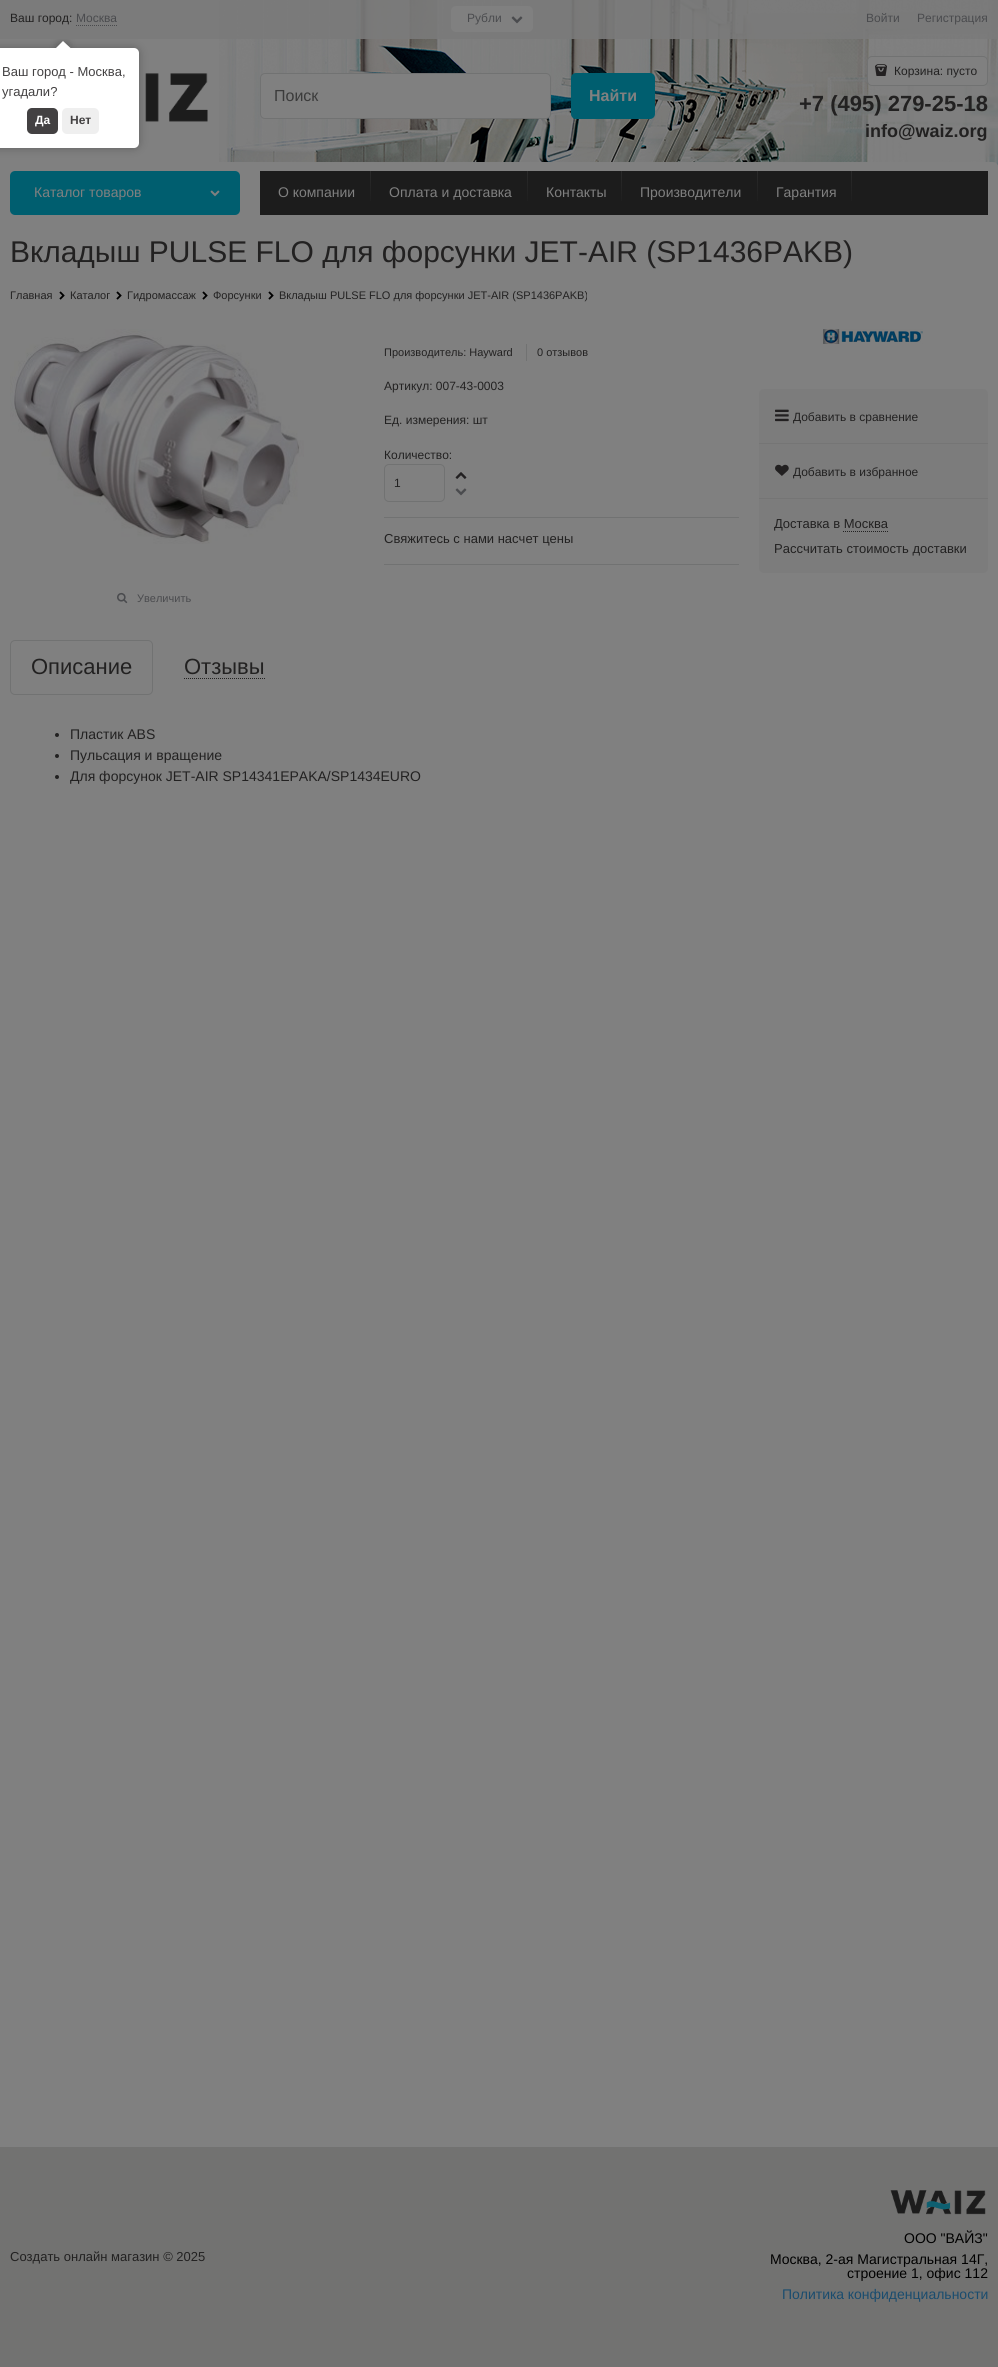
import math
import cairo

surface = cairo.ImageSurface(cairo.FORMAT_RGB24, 998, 2367)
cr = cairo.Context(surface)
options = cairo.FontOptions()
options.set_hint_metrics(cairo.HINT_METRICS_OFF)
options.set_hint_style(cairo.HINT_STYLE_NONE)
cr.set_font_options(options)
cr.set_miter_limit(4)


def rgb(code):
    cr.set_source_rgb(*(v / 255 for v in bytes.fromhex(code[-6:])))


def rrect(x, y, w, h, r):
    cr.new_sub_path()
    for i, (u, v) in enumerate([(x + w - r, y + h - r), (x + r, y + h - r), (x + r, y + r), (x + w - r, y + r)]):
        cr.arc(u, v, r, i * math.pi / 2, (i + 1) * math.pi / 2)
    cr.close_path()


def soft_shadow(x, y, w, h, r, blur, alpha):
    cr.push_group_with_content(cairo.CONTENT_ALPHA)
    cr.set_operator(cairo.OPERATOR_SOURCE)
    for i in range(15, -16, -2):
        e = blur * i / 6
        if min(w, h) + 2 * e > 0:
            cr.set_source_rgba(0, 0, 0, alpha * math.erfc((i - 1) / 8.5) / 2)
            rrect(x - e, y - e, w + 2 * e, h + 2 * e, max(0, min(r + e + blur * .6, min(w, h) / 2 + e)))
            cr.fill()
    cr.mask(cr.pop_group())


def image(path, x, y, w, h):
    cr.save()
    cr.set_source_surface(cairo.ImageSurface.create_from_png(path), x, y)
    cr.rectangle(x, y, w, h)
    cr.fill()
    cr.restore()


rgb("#808080")
cr.paint()
image("img/1.png", 219, 0, 779, 167)
cr.set_source_rgba(0.478, 0.478, 0.478, 0.9)
cr.rectangle(0, 0, 998, 39)
cr.fill()
cr.new_path()
cr.move_to(76, 25.5)
cr.line_to(117, 25.5)
rgb("#4a4b4e")
cr.set_line_width(1)
cr.set_dash([1, 1])
cr.stroke()
rgb("#808080")
rrect(451, 6, 82, 26, 5)
cr.fill()
image("img/2.png", 511, 16, 12, 8)
image("img/3.png", 145, 73, 63, 49)
rrect(260.5, 73.5, 290, 45, 4.5)
cr.fill_preserve()
rgb("#717272")
cr.set_dash([])
cr.stroke()
rgb("#005e6f")
rrect(571, 73, 84, 46, 5)
cr.fill()
rgb("#808080")
rrect(867.5, 56.5, 120, 29, 4.5)
cr.fill_preserve()
rgb("#717272")
cr.stroke()
image("img/4.png", 875, 64, 12, 12)
rgb("#808080")
rrect(0, 162, 998, 708, 5)
cr.fill()
rgb("#005e6f")
rrect(10, 171, 230, 44, 5)
cr.fill()
image("img/5.png", 210, 190, 10, 7)
rgb("#1c1c1c")
cr.rectangle(260, 171, 728, 44)
cr.fill()
gradient = cairo.LinearGradient(371, 171, 371, 215)
gradient.add_color_stop_rgba(0, 0.165, 0.165, 0.165, 1)
gradient.add_color_stop_rgba(0.72, 0.118, 0.118, 0.118, 1)
gradient.add_color_stop_rgba(1, 0.11, 0.11, 0.11, 1)
cr.set_source(gradient)
cr.rectangle(370, 171, 1, 30)
cr.fill()
gradient = cairo.LinearGradient(528, 171, 528, 215)
gradient.add_color_stop_rgba(0, 0.165, 0.165, 0.165, 1)
gradient.add_color_stop_rgba(0.72, 0.118, 0.118, 0.118, 1)
gradient.add_color_stop_rgba(1, 0.11, 0.11, 0.11, 1)
cr.set_source(gradient)
cr.rectangle(527, 171, 1, 30)
cr.fill()
gradient = cairo.LinearGradient(622, 171, 622, 215)
gradient.add_color_stop_rgba(0, 0.165, 0.165, 0.165, 1)
gradient.add_color_stop_rgba(0.72, 0.118, 0.118, 0.118, 1)
gradient.add_color_stop_rgba(1, 0.11, 0.11, 0.11, 1)
cr.set_source(gradient)
cr.rectangle(621, 171, 1, 30)
cr.fill()
gradient = cairo.LinearGradient(758, 171, 758, 215)
gradient.add_color_stop_rgba(0, 0.165, 0.165, 0.165, 1)
gradient.add_color_stop_rgba(0.72, 0.118, 0.118, 0.118, 1)
gradient.add_color_stop_rgba(1, 0.11, 0.11, 0.11, 1)
cr.set_source(gradient)
cr.rectangle(757, 171, 1, 30)
cr.fill()
gradient = cairo.LinearGradient(852, 171, 852, 215)
gradient.add_color_stop_rgba(0, 0.165, 0.165, 0.165, 1)
gradient.add_color_stop_rgba(0.72, 0.118, 0.118, 0.118, 1)
gradient.add_color_stop_rgba(1, 0.11, 0.11, 0.11, 1)
cr.set_source(gradient)
cr.rectangle(851, 171, 1, 30)
cr.fill()
image("img/6.png", 59, 291, 6, 9)
image("img/6.png", 116, 291, 6, 9)
image("img/6.png", 202, 291, 6, 9)
image("img/6.png", 268, 291, 6, 9)
rgb("#717272")
cr.rectangle(526, 344, 1, 17)
cr.fill()
rrect(384.5, 464.5, 60, 37, 4.5)
cr.stroke()
image("img/7.png", 455, 472, 12, 7)
image("img/2.png", 455, 488, 12, 8)
cr.rectangle(384, 517, 355, 1)
cr.fill()
cr.rectangle(384, 564, 355, 1)
cr.fill()
image("img/8.png", 10, 329, 294, 215)
image("img/9.png", 117, 592, 11, 12)
rrect(10.5, 640.5, 142, 54, 4.5)
cr.stroke()
cr.new_path()
cr.move_to(184, 678.5)
cr.line_to(265, 678.5)
rgb("#222121")
cr.set_dash([1, 1])
cr.stroke()
cr.arc(57, 735, 2, 0, 2 * math.pi)
cr.fill()
cr.arc(57, 756, 2, 0, 2 * math.pi)
cr.fill()
cr.arc(57, 777, 2, 0, 2 * math.pi)
cr.fill()
image("img/10.png", 823, 329, 100, 15)
rgb("#7c7c7c")
rrect(759, 389, 229, 184, 5)
cr.fill()
rgb("#757575")
cr.rectangle(759, 443, 229, 1)
cr.fill()
image("img/11.png", 775, 409, 14, 13)
cr.rectangle(759, 498, 229, 1)
cr.fill()
image("img/12.png", 775, 464, 14, 12)
cr.new_path()
cr.move_to(843, 531.5)
cr.line_to(888, 531.5)
rgb("#222121")
cr.stroke()
rgb("#727271")
cr.rectangle(0, 2147, 998, 220)
cr.fill()
image("img/13.png", 890, 2190, 96, 25)
rgb("#000000")
soft_shadow(-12, 48, 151, 100, 5, 4.5, 0.25)
rgb("#ffffff")
rrect(-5, 48, 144, 100, 5)
cr.fill()
cr.save()
cr.rectangle(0, 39, 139, 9)
cr.clip()
rgb("#000000")
soft_shadow(58, 43, 10, 10, 0, 4.5, 0.25)
cr.restore()
cr.save()
cr.rectangle(0, 39, 139, 9)
cr.clip()
cr.new_path()
cr.move_to(63, 41)
cr.line_to(70.5, 48)
cr.line_to(63, 55)
cr.line_to(56, 48)
cr.close_path()
cr.fill()
cr.restore()
rgb("#434142")
rrect(27, 108, 31, 26, 5)
cr.fill()
rgb("#efefef")
rrect(62, 108, 37, 26, 5)
cr.fill()
cr.select_font_face("Liberation Sans")
cr.set_font_size(12)
rgb("#222121")
cr.move_to(10, 22)
cr.show_text("Ваш город:")
rgb("#4a4b4e")
for x, y, s in [
    (76, 22, "Москва"),
    (467, 22, "Рубли"),
    (866, 22, "Войти"),
    (917, 22, "Регистрация"),
]:
    cr.move_to(x, y)
    cr.show_text(s)
cr.set_font_size(16)
rgb("#3b3b3b")
cr.move_to(274, 101)
cr.show_text("Поиск")
cr.select_font_face("Liberation Sans", cairo.FONT_SLANT_NORMAL, cairo.FONT_WEIGHT_BOLD)
rgb("#808080")
cr.move_to(589, 101)
cr.show_text("Найти")
cr.select_font_face("Liberation Sans")
cr.set_font_size(12)
rgb("#222121")
cr.move_to(894, 75)
cr.show_text("Корзина: пусто")
cr.select_font_face("Liberation Sans", cairo.FONT_SLANT_NORMAL, cairo.FONT_WEIGHT_BOLD)
cr.set_font_size(22)
cr.move_to(799, 111)
cr.show_text("+7 (495) 279-25-18")
cr.set_font_size(18)
cr.move_to(865, 137)
cr.show_text("info@waiz.org")
cr.select_font_face("Liberation Sans")
cr.set_font_size(14)
rgb("#808080")
for x, y, s in [
    (34, 197, "Каталог товаров"),
    (278, 197, "О компании"),
    (389, 197, "Оплата и доставка"),
    (546, 197, "Контакты"),
    (640, 197, "Производители"),
    (776, 197, "Гарантия"),
]:
    cr.move_to(x, y)
    cr.show_text(s)
cr.set_font_size(30)
rgb("#222121")
cr.move_to(10, 262)
cr.show_text("Вкладыш PULSE FLO для форсунки JET-AIR (SP1436PAKB)")
cr.set_font_size(11)
for x, y, s in [
    (10, 299, "Главная"),
    (70, 299, "Каталог"),
    (127, 299, "Гидромассаж"),
    (213, 299, "Форсунки"),
    (279, 299, "Вкладыш PULSE FLO для форсунки JET-AIR (SP1436PAKB)"),
    (384, 356, "Производитель: Hayward"),
    (537, 356, "0 отзывов"),
]:
    cr.move_to(x, y)
    cr.show_text(s)
cr.set_font_size(12)
for x, y, s in [
    (384, 390, "Артикул: 007-43-0003"),
    (384, 424, "Ед. измерения: шт"),
    (384, 459, "Количество:"),
    (394, 487, "1"),
]:
    cr.move_to(x, y)
    cr.show_text(s)
cr.set_font_size(13)
cr.move_to(384, 543)
cr.show_text("Свяжитесь с нами насчет цены")
cr.set_font_size(11)
rgb("#4a4b4e")
cr.move_to(137, 602)
cr.show_text("Увеличить")
cr.set_font_size(22)
rgb("#222121")
cr.move_to(31, 674)
cr.show_text("Описание")
cr.move_to(184, 674)
cr.show_text("Отзывы")
cr.set_font_size(14)
for x, y, s in [
    (70, 739, "Пластик ABS"),
    (70, 760, "Пульсация и вращение"),
    (70, 781, "Для форсунок JET-AIR SP14341EPAKA/SP1434EURO"),
]:
    cr.move_to(x, y)
    cr.show_text(s)
cr.set_font_size(12)
cr.move_to(793, 421)
cr.show_text("Добавить в сравнение")
cr.move_to(793, 476)
cr.show_text("Добавить в избранное")
cr.set_font_size(13)
for x, y, s in [
    (774, 528, "Доставка в Москва"),
    (774, 553, "Рассчитать стоимость доставки"),
    (10, 2261, "Создать онлайн магазин © 2025"),
]:
    cr.move_to(x, y)
    cr.show_text(s)
cr.set_font_size(14)
rgb("#000000")
for x, y, s in [
    (904, 2243, "ООО \"ВАЙЗ\""),
    (770, 2264, "Москва, 2-ая Магистральная 14Г,"),
    (847, 2278, "строение 1, офис 112"),
]:
    cr.move_to(x, y)
    cr.show_text(s)
rgb("#1a4c6e")
cr.move_to(782, 2299)
cr.show_text("Политика конфиденциальности")
cr.set_font_size(13)
rgb("#434142")
cr.move_to(2, 76)
cr.show_text("Ваш город - Москва,")
cr.move_to(2, 96)
cr.show_text("угадали?")
cr.select_font_face("Liberation Sans", cairo.FONT_SLANT_NORMAL, cairo.FONT_WEIGHT_BOLD)
cr.set_font_size(12)
rgb("#ffffff")
cr.move_to(35, 124)
cr.show_text("Да")
rgb("#434142")
cr.move_to(70, 124)
cr.show_text("Нет")
surface.write_to_png("page.png")
